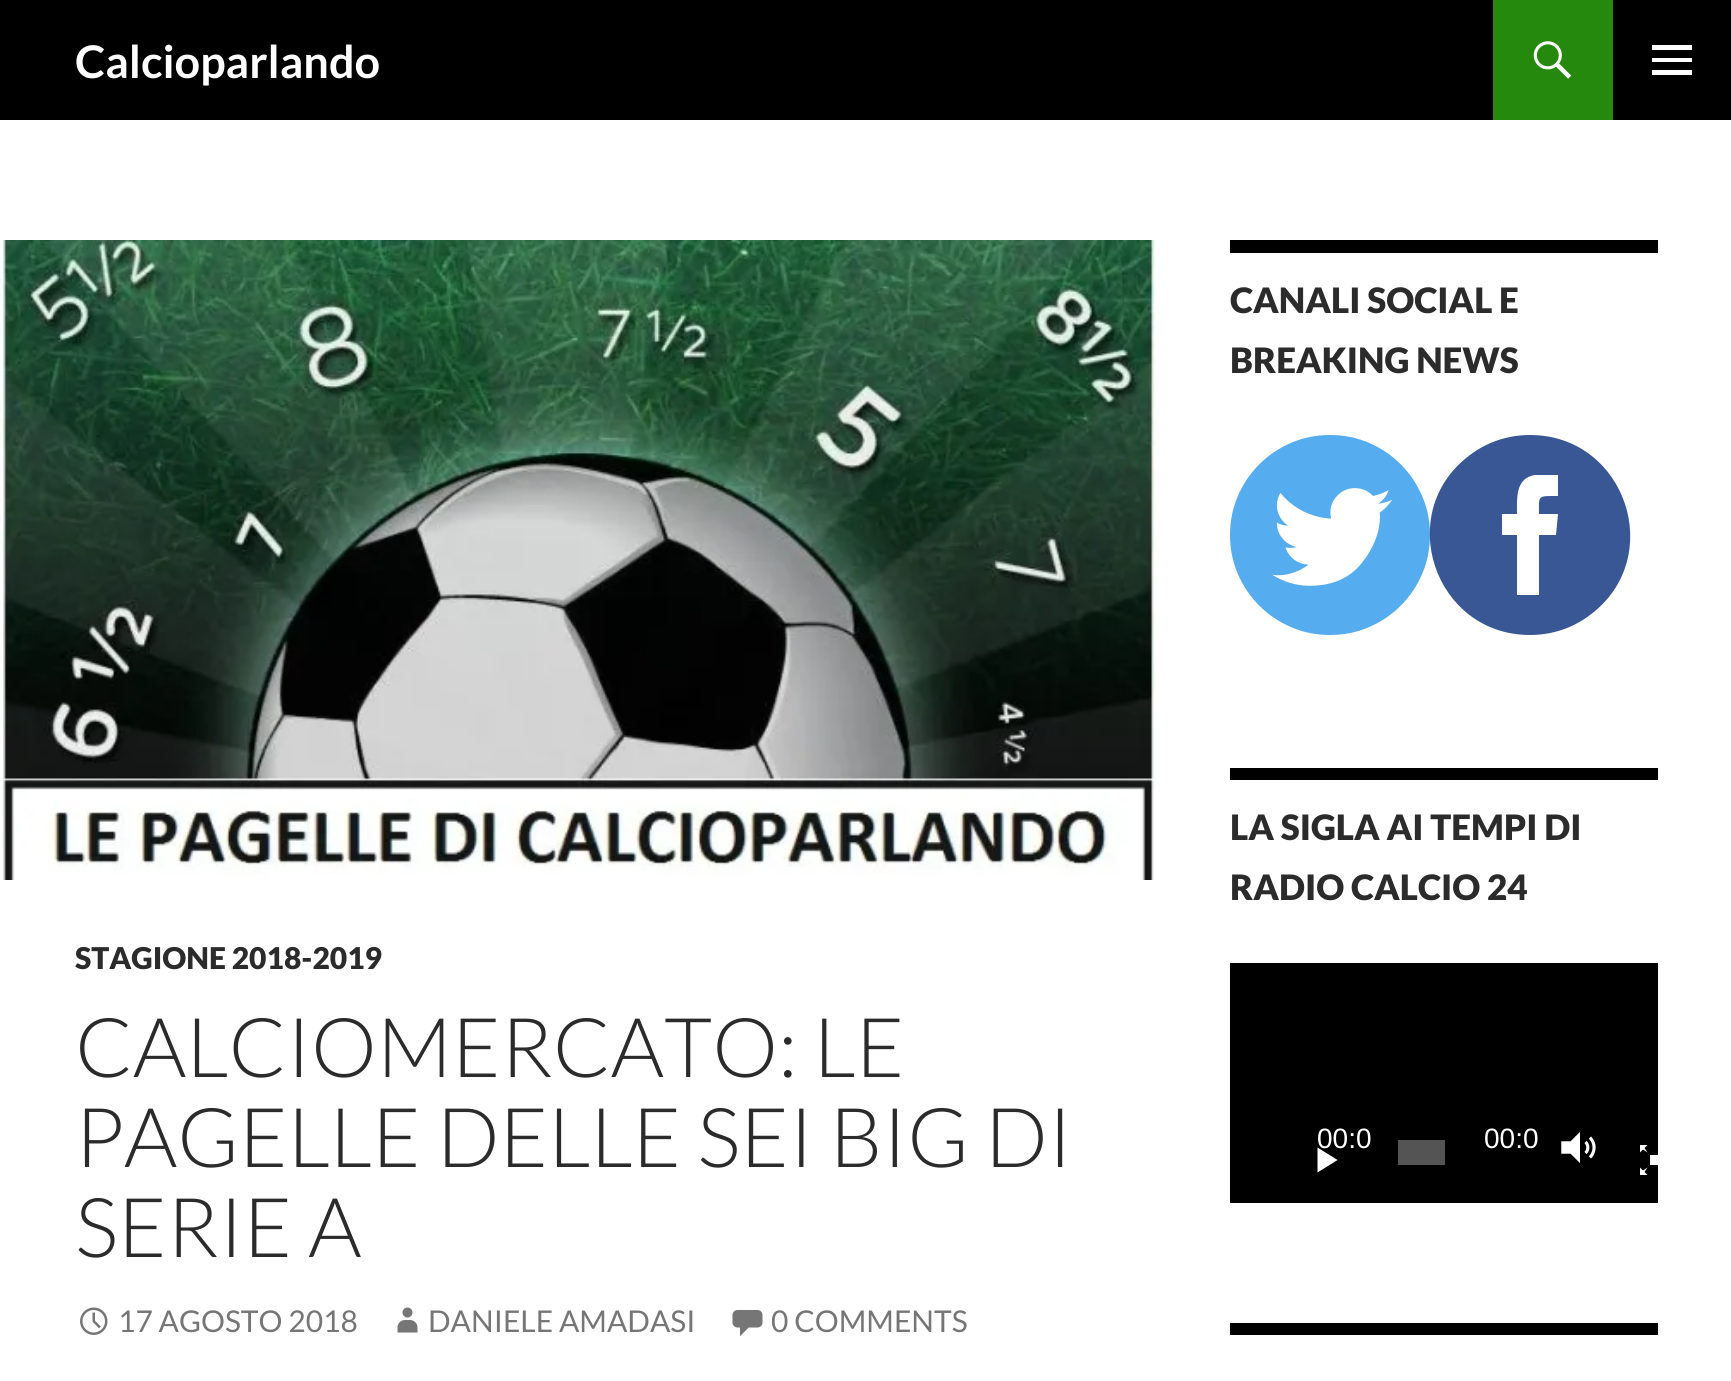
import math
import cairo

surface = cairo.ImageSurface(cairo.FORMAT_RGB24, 1731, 1381)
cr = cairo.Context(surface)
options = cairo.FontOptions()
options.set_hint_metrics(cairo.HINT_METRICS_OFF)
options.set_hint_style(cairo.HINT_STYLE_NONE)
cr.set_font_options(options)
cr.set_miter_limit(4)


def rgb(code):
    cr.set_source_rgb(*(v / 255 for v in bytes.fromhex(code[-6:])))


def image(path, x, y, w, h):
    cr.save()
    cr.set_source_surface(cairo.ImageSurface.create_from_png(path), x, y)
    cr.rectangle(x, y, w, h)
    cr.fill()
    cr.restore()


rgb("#ffffff")
cr.paint()
rgb("#000000")
cr.rectangle(0, 0, 1731, 120)
cr.fill()
rgb("#24890d")
cr.rectangle(1493, 0, 120, 120)
cr.fill()
image("img/1.png", 1533, 41, 39, 38)
rgb("#ffffff")
cr.new_path()
cr.move_to(1652, 75)
cr.line_to(1652, 70)
cr.line_to(1692, 70)
cr.line_to(1692, 75)
cr.close_path()
cr.move_to(1652, 45)
cr.line_to(1692, 45)
cr.line_to(1692, 50)
cr.line_to(1652, 50)
cr.close_path()
cr.move_to(1652, 62)
cr.line_to(1652, 58)
cr.line_to(1692, 58)
cr.line_to(1692, 62)
cr.close_path()
cr.fill()
image("img/2.png", 0, 240, 1155, 640)
image("img/3.png", 80, 1307, 28, 28)
image("img/4.png", 397, 1307, 21, 26)
image("img/5.png", 732, 1310, 31, 27)
rgb("#000000")
cr.rectangle(1230, 240, 428, 13)
cr.fill()
image("img/6.png", 1230, 435, 200, 200)
rgb("#3a5795")
cr.new_path()
cr.move_to(1530, 435)
cr.curve_to(1508, 435, 1487, 442, 1470, 455)
cr.curve_to(1393, 512, 1434, 635, 1530, 635)
cr.curve_to(1552, 635, 1573, 628, 1590, 615)
cr.curve_to(1667, 558, 1626, 435, 1530, 435)
cr.close_path()
cr.move_to(1556, 535)
cr.line_to(1539, 535)
cr.line_to(1539, 595)
cr.line_to(1517, 595)
cr.line_to(1517, 535)
cr.line_to(1502, 535)
cr.line_to(1502, 514)
cr.line_to(1517, 514)
cr.curve_to(1517, 499, 1515, 478, 1535, 475)
cr.line_to(1558, 475)
cr.line_to(1558, 496)
cr.curve_to(1537, 496, 1539, 495, 1539, 514)
cr.line_to(1558, 514)
cr.close_path()
cr.fill()
for x, y, w, h, color in [
    (1230, 768, 428, 12, "#000000"),
    (1230, 963, 428, 240, "#000000"),
    (1398, 1140, 47, 25, "#545454"),
]:
    rgb(color)
    cr.rectangle(x, y, w, h)
    cr.fill()
image("img/7.png", 1561, 1132, 35, 31)
image("img/8.png", 1640, 1145, 18, 30)
rgb("#ffffff")
cr.new_path()
cr.move_to(1317.5, 1147.5)
cr.line_to(1337.5, 1160)
cr.line_to(1317.5, 1172.5)
cr.close_path()
cr.fill()
rgb("#000000")
cr.rectangle(1230, 1323, 428, 12)
cr.fill()
cr.select_font_face("Lato", cairo.FONT_SLANT_NORMAL, cairo.FONT_WEIGHT_BOLD)
cr.set_font_size(45)
rgb("#ffffff")
cr.move_to(75, 78)
cr.show_text("Calcioparlando")
cr.select_font_face("Lato Black")
cr.set_font_size(30)
rgb("#2b2b2b")
cr.move_to(75, 969)
cr.show_text("STAGIONE 2018-2019")
cr.select_font_face("Lato Light")
cr.set_font_size(82.5)
for x, y, s in [
    (75, 1077, "CALCIOMERCATO: LE"),
    (75, 1167, "PAGELLE DELLE SEI BIG DI"),
    (75, 1257, "SERIE A"),
]:
    cr.move_to(x, y)
    cr.show_text(s)
cr.select_font_face("Lato")
cr.set_font_size(30)
rgb("#767676")
for x, y, s in [
    (118, 1332, "17 AGOSTO 2018"),
    (428, 1332, "DANIELE AMADASI"),
    (771, 1332, "0 COMMENTS"),
]:
    cr.move_to(x, y)
    cr.show_text(s)
cr.select_font_face("Lato Black")
cr.set_font_size(35)
rgb("#2b2b2b")
for x, y, s in [
    (1230, 313, "CANALI SOCIAL E"),
    (1230, 373, "BREAKING NEWS"),
    (1230, 840, "LA SIGLA AI TEMPI DI"),
    (1230, 900, "RADIO CALCIO 24"),
]:
    cr.move_to(x, y)
    cr.show_text(s)
cr.select_font_face("Liberation Sans")
cr.set_font_size(28)
rgb("#ffffff")
cr.move_to(1317, 1148)
cr.show_text("00:0")
cr.move_to(1484, 1148)
cr.show_text("00:0")
surface.write_to_png("page.png")
